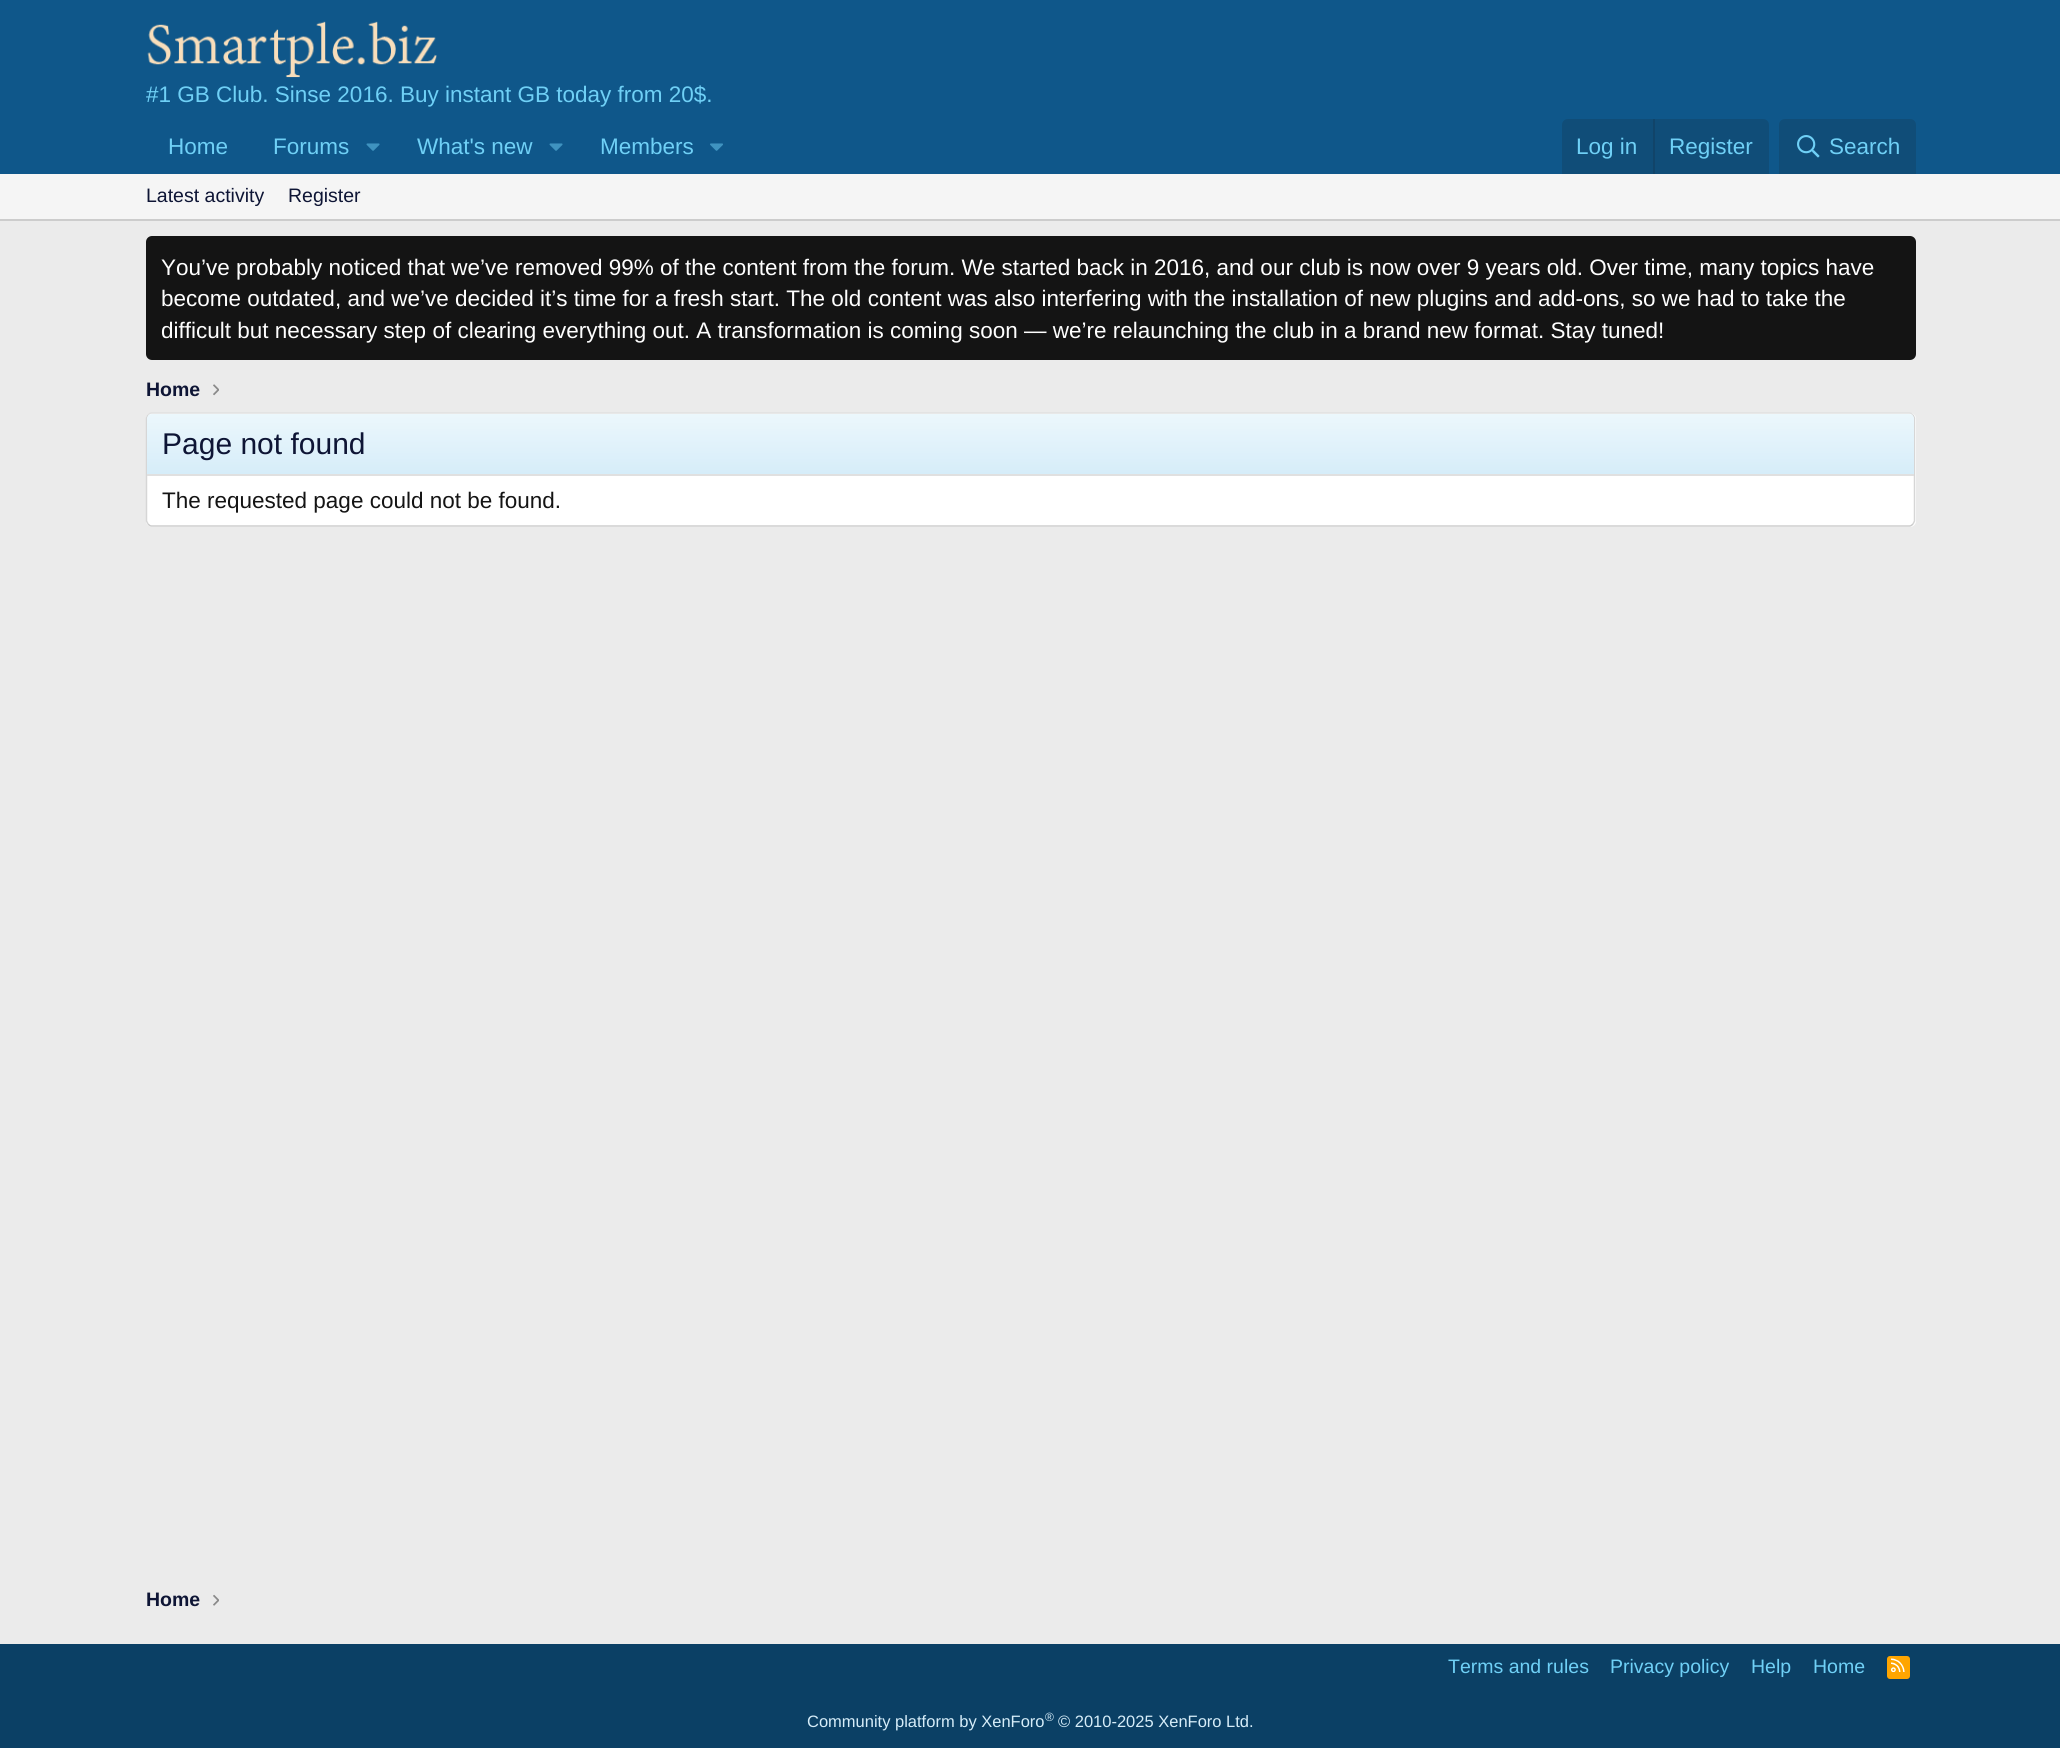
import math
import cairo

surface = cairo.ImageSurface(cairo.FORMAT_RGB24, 2060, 1748)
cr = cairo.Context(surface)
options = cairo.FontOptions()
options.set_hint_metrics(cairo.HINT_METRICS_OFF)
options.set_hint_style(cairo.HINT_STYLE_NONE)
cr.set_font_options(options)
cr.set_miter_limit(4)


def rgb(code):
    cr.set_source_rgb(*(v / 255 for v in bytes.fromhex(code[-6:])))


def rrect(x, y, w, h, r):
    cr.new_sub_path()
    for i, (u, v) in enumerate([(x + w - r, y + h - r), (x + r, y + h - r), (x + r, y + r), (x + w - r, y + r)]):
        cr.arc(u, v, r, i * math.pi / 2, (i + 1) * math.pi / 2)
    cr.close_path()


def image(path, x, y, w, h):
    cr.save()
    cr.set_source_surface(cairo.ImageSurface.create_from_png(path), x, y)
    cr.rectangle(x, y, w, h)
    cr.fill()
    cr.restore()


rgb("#ebebeb")
cr.paint()
rgb("#0f578a")
cr.rectangle(0, 0, 2060, 174)
cr.fill()
image("img/1.png", 147, 21, 290, 57)
image("img/2.png", 366, 143, 14, 8)
image("img/2.png", 549, 143, 14, 8)
image("img/3.png", 710, 143, 13, 8)
rgb("#104d78")
cr.new_path()
cr.move_to(1568, 119)
cr.line_to(1763, 119)
cr.curve_to(1766.5, 119, 1769, 121.5, 1769, 125)
cr.line_to(1769, 174)
cr.line_to(1562, 174)
cr.line_to(1562, 125)
cr.curve_to(1562, 121.5, 1564.5, 119, 1568, 119)
cr.close_path()
cr.fill()
rgb("#114469")
cr.rectangle(1653, 119, 2, 55)
cr.fill()
rgb("#104d78")
cr.new_path()
cr.move_to(1785, 119)
cr.line_to(1910, 119)
cr.curve_to(1913.5, 119, 1916, 121.5, 1916, 125)
cr.line_to(1916, 174)
cr.line_to(1779, 174)
cr.line_to(1779, 125)
cr.curve_to(1779, 121.5, 1781.5, 119, 1785, 119)
cr.close_path()
cr.fill()
image("img/4.png", 1797, 135, 23, 23)
rgb("#f5f5f5")
cr.rectangle(0, 174, 2060, 45)
cr.fill()
rgb("#cccccc")
cr.rectangle(0, 219, 2060, 2)
cr.fill()
rgb("#141414")
rrect(146, 236, 1770, 124, 6)
cr.fill()
image("img/5.png", 213, 384, 6, 12)
rgb("#ffffff")
rrect(146, 413, 1770, 114, 6)
cr.fill()
cr.new_path()
cr.move_to(148, 415)
cr.curve_to(149, 414, 150, 413, 151.5, 413)
cr.line_to(1909.5, 413)
cr.curve_to(1911, 413, 1912, 414, 1913, 415)
rgb("#e0e0e0")
cr.set_line_width(1.5)
cr.stroke()
cr.new_path()
cr.move_to(1913, 415)
cr.line_to(1914.5, 418)
cr.line_to(1914.5, 521)
cr.line_to(1913, 524)
rgb("#d6d6d6")
cr.stroke()
cr.new_path()
cr.move_to(1913, 524)
cr.curve_to(1912, 525, 1911, 526, 1909.5, 526)
cr.line_to(151.5, 526)
cr.curve_to(150, 526, 149, 525, 148, 524)
rgb("#cccccc")
cr.stroke()
cr.new_path()
cr.move_to(148, 524)
cr.line_to(146.5, 521)
cr.line_to(146.5, 418)
cr.line_to(148, 415)
rgb("#d6d6d6")
cr.stroke()
gradient = cairo.LinearGradient(1031, 474, 1031, 414)
gradient.add_color_stop_rgba(0, 0.839, 0.929, 0.976, 1)
gradient.add_color_stop_rgba(1, 0.925, 0.969, 0.988, 1)
cr.set_source(gradient)
cr.new_path()
cr.move_to(152, 414)
cr.line_to(1909, 414)
cr.curve_to(1912, 414, 1914, 416, 1914, 419)
cr.line_to(1914, 474)
cr.line_to(147, 474)
cr.line_to(147, 419)
cr.curve_to(147, 416, 149, 414, 152, 414)
cr.close_path()
cr.fill()
rgb("#e0e0e0")
cr.rectangle(147, 474, 1767, 2)
cr.fill()
image("img/6.png", 213, 1594, 6, 12)
rgb("#0b4065")
cr.rectangle(0, 1644, 2060, 104)
cr.fill()
rgb("#ffa500")
rrect(1887, 1656, 23, 23, 3)
cr.fill()
image("img/7.png", 1891, 1658, 14, 14)
cr.select_font_face("Liberation Sans")
cr.set_font_size(22.5)
rgb("#6fd0f6")
for x, y, s in [
    (146, 102, "#1 GB Club. Sinse 2016. Buy instant GB today from 20$."),
    (168, 154, "Home"),
    (273, 154, "Forums"),
    (417, 154, "What's new"),
    (600, 154, "Members"),
    (1576, 154, "Log in"),
    (1669, 154, "Register"),
    (1829, 154, "Search"),
]:
    cr.move_to(x, y)
    cr.show_text(s)
cr.set_font_size(19.5)
rgb("#0e1535")
cr.move_to(146, 202)
cr.show_text("Latest activity")
cr.move_to(288, 202)
cr.show_text("Register")
cr.set_font_size(22.5)
rgb("#fefefe")
for x, y, s in [
    (161, 275, "You’ve probably noticed that we’ve removed 99% of the content from the forum. We started back in 2016, and our club is now over 9 years old. Over time, many topics have"),
    (161, 306, "become outdated, and we’ve decided it’s time for a fresh start. The old content was also interfering with the installation of new plugins and add-ons, so we had to take the"),
    (161, 338, "difficult but necessary step of clearing everything out. A transformation is coming soon — we’re relaunching the club in a brand new format. Stay tuned!"),
]:
    cr.move_to(x, y)
    cr.show_text(s)
cr.select_font_face("Liberation Sans", cairo.FONT_SLANT_NORMAL, cairo.FONT_WEIGHT_BOLD)
cr.set_font_size(19.5)
rgb("#0e1535")
cr.move_to(146, 396)
cr.show_text("Home")
cr.select_font_face("Liberation Sans")
cr.set_font_size(30)
cr.move_to(162, 454)
cr.show_text("Page not found")
cr.set_font_size(22.5)
rgb("#141414")
cr.move_to(162, 508)
cr.show_text("The requested page could not be found.")
cr.select_font_face("Liberation Sans", cairo.FONT_SLANT_NORMAL, cairo.FONT_WEIGHT_BOLD)
cr.set_font_size(19.5)
rgb("#0e1535")
cr.move_to(146, 1606)
cr.show_text("Home")
cr.select_font_face("Liberation Sans")
rgb("#6fd0f6")
for x, y, s in [
    (1448, 1673, "Terms and rules"),
    (1610, 1673, "Privacy policy"),
    (1751, 1673, "Help"),
    (1813, 1673, "Home"),
]:
    cr.move_to(x, y)
    cr.show_text(s)
cr.set_font_size(16.5)
rgb("#d6edf9")
cr.move_to(807, 1727)
cr.show_text("Community platform by XenForo")
cr.set_font_size(12)
cr.move_to(1045, 1721)
cr.show_text("®")
cr.set_font_size(16.5)
cr.move_to(1058, 1727)
cr.show_text("© 2010-2025 XenForo Ltd.")
surface.write_to_png("page.png")
